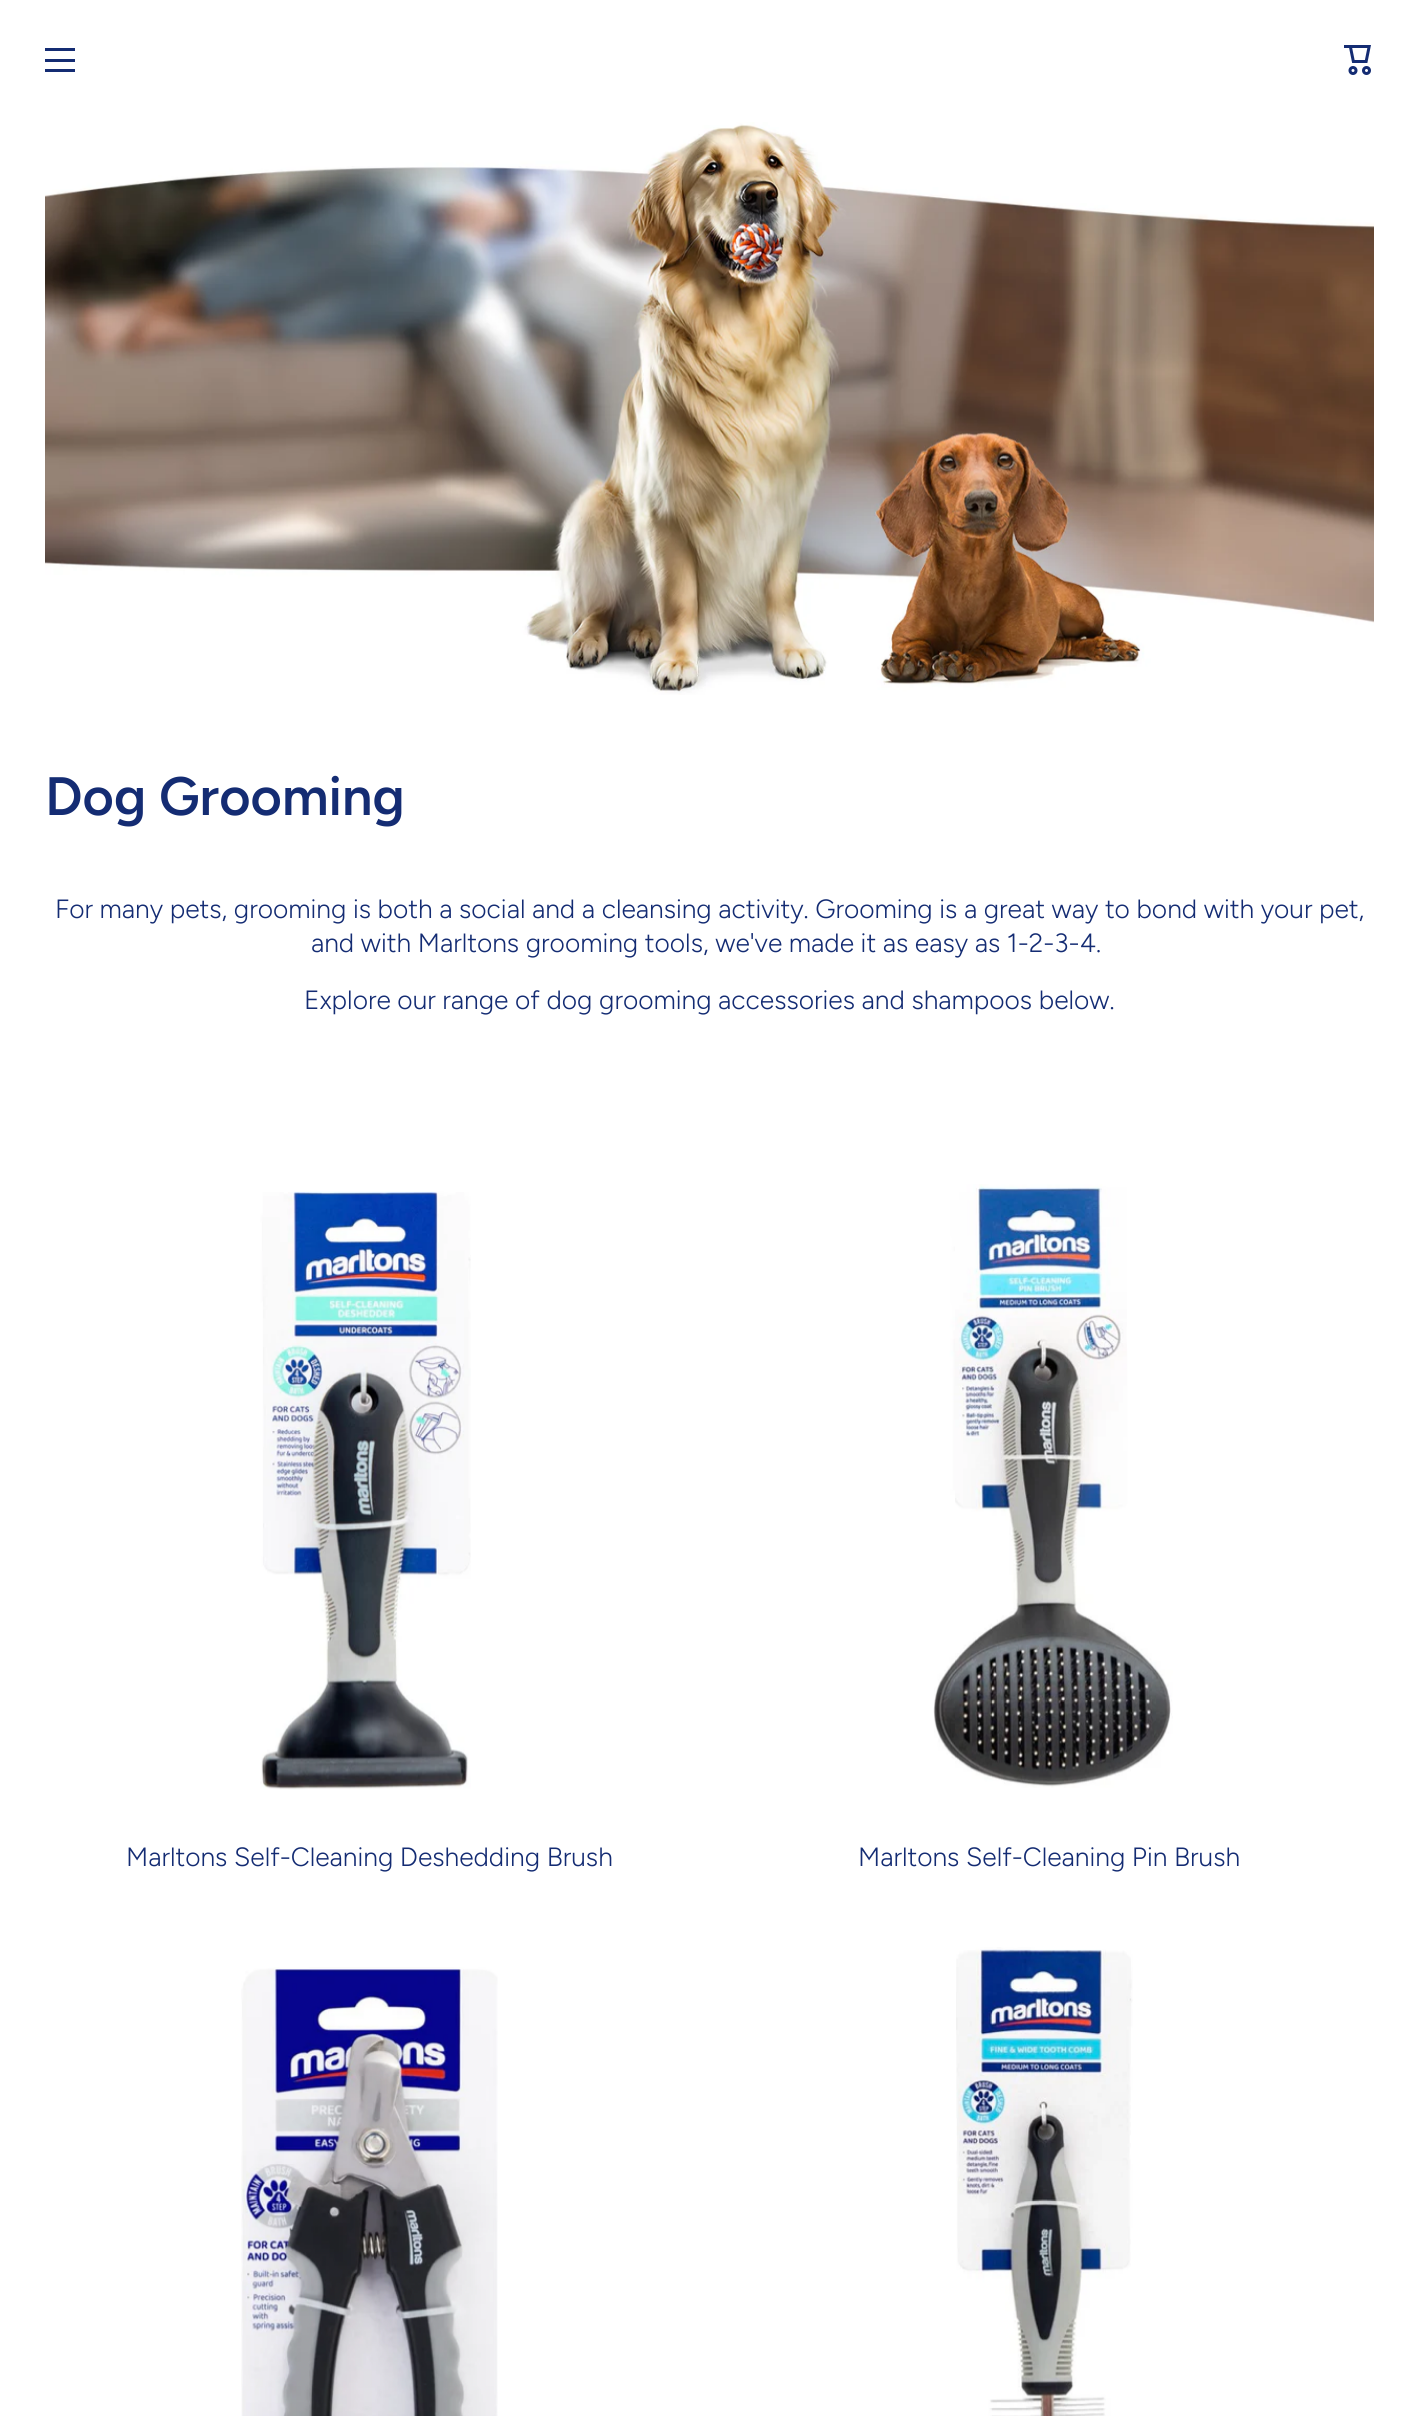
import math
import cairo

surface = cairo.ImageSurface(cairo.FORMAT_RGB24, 1418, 2416)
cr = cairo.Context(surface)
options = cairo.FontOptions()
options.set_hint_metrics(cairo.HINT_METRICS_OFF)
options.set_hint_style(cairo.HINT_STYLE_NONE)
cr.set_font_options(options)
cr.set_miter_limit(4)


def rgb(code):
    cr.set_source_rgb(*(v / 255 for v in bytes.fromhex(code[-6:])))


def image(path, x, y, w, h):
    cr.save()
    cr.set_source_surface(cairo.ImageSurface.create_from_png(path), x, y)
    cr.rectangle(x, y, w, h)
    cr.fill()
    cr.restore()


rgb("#ffffff")
cr.paint()
for x, y, w, h, color in [
    (45, 48, 30, 3, "#142c73"),
    (45, 59, 30, 3, "#142c73"),
    (45, 69, 30, 3, "#142c73"),
]:
    rgb(color)
    cr.rectangle(x, y, w, h)
    cr.fill()
image("img/1.png", 1344, 45, 27, 30)
image("img/2.png", 45, 122, 1329, 573)
image("img/3.png", 260, 1191, 211, 599)
image("img/4.png", 933, 1184, 240, 604)
image("img/5.png", 241, 1967, 257, 449)
image("img/6.png", 956, 1947, 177, 469)
cr.select_font_face("Figtree SemiBold")
cr.set_font_size(54)
cr.move_to(45, 815)
cr.show_text("Dog Grooming")
cr.select_font_face("Figtree Light")
cr.set_font_size(26.4)
for x, y, s in [
    (55, 918, "For many pets, grooming is both a social and a cleansing activity. Grooming is a great way to bond with your pet,"),
    (311, 952, "and with Marltons grooming tools, we've made it as easy as 1-2-3-4."),
    (304, 1009, "Explore our range of dog grooming accessories and shampoos below."),
    (126, 1866, "Marltons Self-Cleaning Deshedding Brush"),
    (858, 1866, "Marltons Self-Cleaning Pin Brush"),
]:
    cr.move_to(x, y)
    cr.show_text(s)
surface.write_to_png("page.png")
